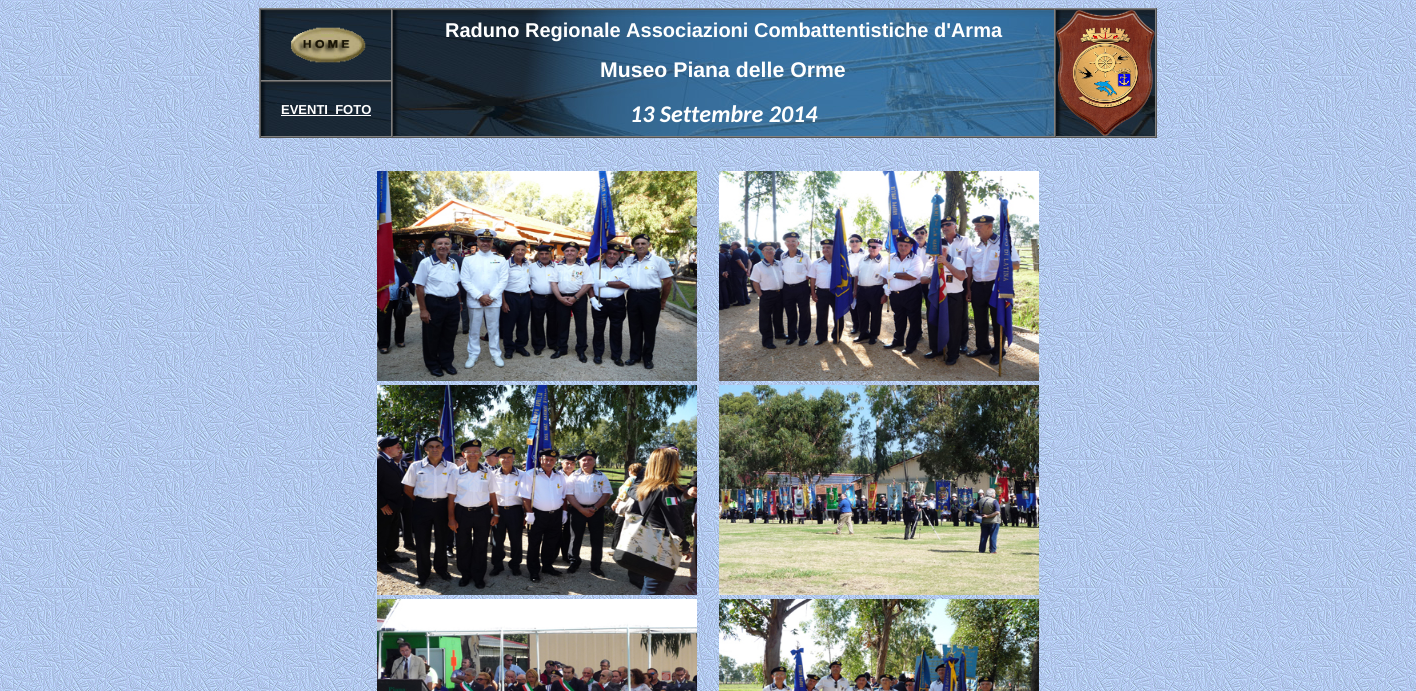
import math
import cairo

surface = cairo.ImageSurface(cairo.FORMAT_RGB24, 1416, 691)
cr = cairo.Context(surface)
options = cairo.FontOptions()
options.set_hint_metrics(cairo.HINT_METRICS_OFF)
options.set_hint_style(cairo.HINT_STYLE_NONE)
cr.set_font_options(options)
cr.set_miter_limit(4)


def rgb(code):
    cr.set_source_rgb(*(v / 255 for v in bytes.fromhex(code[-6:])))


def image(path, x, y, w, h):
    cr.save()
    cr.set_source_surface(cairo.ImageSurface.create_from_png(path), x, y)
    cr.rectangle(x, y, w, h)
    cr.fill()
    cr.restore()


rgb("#ffffff")
cr.paint()
image("img/1.png", 0, 0, 1416, 691)
for x, y, w, h, color in [
    (259, 8, 898, 1, "#808080"),
    (1156, 8, 1, 130, "#555555"),
    (259, 137, 898, 1, "#555555"),
    (259, 8, 1, 130, "#808080"),
]:
    rgb(color)
    cr.rectangle(x, y, w, h)
    cr.fill()
image("img/2.png", 261, 82, 130, 54)
for x, y, w, h, color in [
    (260, 81, 132, 1, "#555555"),
    (391, 81, 1, 56, "#808080"),
    (260, 136, 132, 1, "#808080"),
    (260, 81, 1, 56, "#555555"),
    (281, 115, 90, 1, "#ffffff"),
]:
    rgb(color)
    cr.rectangle(x, y, w, h)
    cr.fill()
image("img/3.png", 261, 10, 130, 70)
for x, y, w, h, color in [
    (260, 9, 896, 1, "#555555"),
    (391, 9, 1, 72, "#808080"),
    (260, 80, 132, 1, "#808080"),
    (260, 9, 1, 72, "#555555"),
]:
    rgb(color)
    cr.rectangle(x, y, w, h)
    cr.fill()
image("img/4.png", 291, 27, 75, 36)
image("img/5.png", 393, 10, 661, 126)
for x, y, w, h, color in [
    (1054, 9, 1, 128, "#808080"),
    (392, 136, 663, 1, "#808080"),
    (392, 9, 1, 128, "#555555"),
]:
    rgb(color)
    cr.rectangle(x, y, w, h)
    cr.fill()
image("img/6.png", 1056, 10, 99, 126)
for x, y, w, h, color in [
    (1155, 9, 1, 128, "#808080"),
    (1055, 136, 101, 1, "#808080"),
    (1055, 9, 1, 128, "#555555"),
]:
    rgb(color)
    cr.rectangle(x, y, w, h)
    cr.fill()
image("img/7.png", 1056, 10, 99, 126)
image("img/8.png", 377, 171, 320, 210)
image("img/9.png", 719, 171, 320, 210)
image("img/10.png", 377, 385, 320, 210)
image("img/11.png", 719, 385, 320, 210)
image("img/12.png", 377, 599, 320, 92)
image("img/13.png", 719, 599, 320, 92)
cr.select_font_face("Liberation Sans", cairo.FONT_SLANT_NORMAL, cairo.FONT_WEIGHT_BOLD)
cr.set_font_size(13)
rgb("#ffffff")
cr.move_to(281, 114)
cr.show_text("EVENTI  FOTO")
cr.set_font_size(20)
cr.move_to(445, 37)
cr.show_text("Raduno Regionale Associazioni Combattentistiche d'Arma")
cr.set_font_size(21.25)
cr.move_to(600, 77)
cr.show_text("Museo Piana delle Orme")
cr.select_font_face("Carlito", cairo.FONT_SLANT_ITALIC, cairo.FONT_WEIGHT_BOLD)
cr.set_font_size(24)
cr.move_to(630, 122)
cr.show_text("13 Settembre 2014")
surface.write_to_png("page.png")
